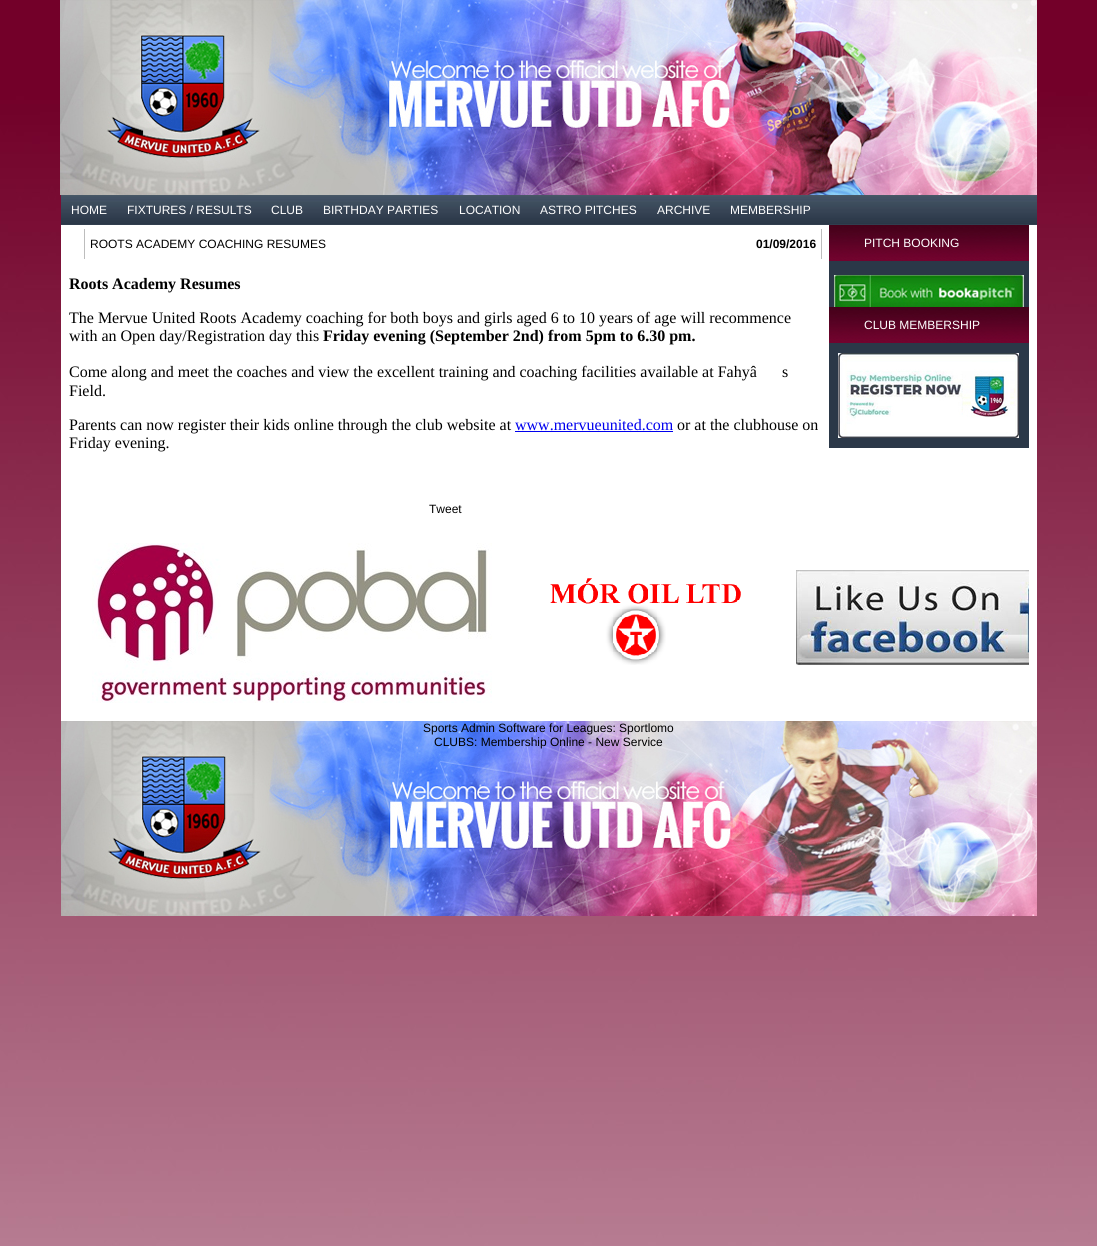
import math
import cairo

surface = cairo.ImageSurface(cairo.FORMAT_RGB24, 1097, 1246)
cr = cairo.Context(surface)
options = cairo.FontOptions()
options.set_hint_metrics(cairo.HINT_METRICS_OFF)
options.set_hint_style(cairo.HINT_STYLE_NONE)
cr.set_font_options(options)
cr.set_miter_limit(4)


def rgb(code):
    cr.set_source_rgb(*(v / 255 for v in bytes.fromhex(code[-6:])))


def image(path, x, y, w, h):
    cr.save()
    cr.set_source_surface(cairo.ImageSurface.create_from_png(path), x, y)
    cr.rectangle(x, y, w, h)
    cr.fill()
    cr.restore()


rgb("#ffffff")
cr.paint()
image("img/1.png", 0, 0, 1097, 1246)
image("img/2.png", 60, 0, 977, 195)
rgb("#ffffff")
cr.rectangle(61, 225, 976, 496)
cr.fill()
image("img/3.png", 61, 195, 976, 30)
image("img/4.png", 61, 195, 56, 26)
image("img/5.png", 117, 195, 144, 26)
image("img/6.png", 261, 195, 52, 26)
image("img/7.png", 313, 195, 136, 26)
image("img/8.png", 449, 195, 81, 26)
image("img/9.png", 530, 195, 117, 26)
image("img/10.png", 647, 195, 73, 26)
image("img/11.png", 720, 195, 101, 26)
for x, y, w, h, color in [
    (821, 229, 1, 30, "#bdbdbd"),
    (84, 229, 1, 30, "#bdbdbd"),
    (515, 431, 158, 1, "#0000ee"),
    (829, 261, 200, 187, "#2b3848"),
]:
    rgb(color)
    cr.rectangle(x, y, w, h)
    cr.fill()
image("img/12.png", 829, 225, 200, 36)
image("img/13.png", 834, 275, 190, 32)
image("img/12.png", 829, 307, 200, 36)
image("img/14.png", 838, 353, 181, 85)
image("img/15.png", 92, 543, 400, 160)
image("img/16.png", 550, 578, 191, 87)
image("img/17.png", 796, 570, 233, 95)
image("img/18.png", 61, 721, 976, 195)
cr.select_font_face("Liberation Sans")
cr.set_font_size(12)
rgb("#ffffff")
for x, y, s in [
    (71, 214, "HOME"),
    (127, 214, "FIXTURES / RESULTS"),
    (271, 214, "CLUB"),
    (323, 214, "BIRTHDAY PARTIES"),
    (459, 214, "LOCATION"),
    (540, 214, "ASTRO PITCHES"),
    (657, 214, "ARCHIVE"),
    (730, 214, "MEMBERSHIP"),
]:
    cr.move_to(x, y)
    cr.show_text(s)
rgb("#000000")
cr.move_to(90, 248)
cr.show_text("ROOTS ACADEMY COACHING RESUMES")
cr.select_font_face("Liberation Sans", cairo.FONT_SLANT_NORMAL, cairo.FONT_WEIGHT_BOLD)
cr.move_to(756, 248)
cr.show_text("01/09/2016")
cr.select_font_face("Liberation Serif", cairo.FONT_SLANT_NORMAL, cairo.FONT_WEIGHT_BOLD)
cr.set_font_size(16)
cr.move_to(69, 289)
cr.show_text("Roots Academy Resumes")
cr.select_font_face("Liberation Serif")
cr.move_to(69, 323)
cr.show_text("The Mervue United Roots Academy coaching for both boys and girls aged 6 to 10 years of age will recommence")
cr.move_to(69, 341)
cr.show_text("with an Open day/Registration day this")
cr.select_font_face("Liberation Serif", cairo.FONT_SLANT_NORMAL, cairo.FONT_WEIGHT_BOLD)
cr.move_to(323, 341)
cr.show_text("Friday evening (September 2nd) from 5pm to 6.30 pm.")
cr.select_font_face("Liberation Serif")
for x, y, s in [
    (69, 377, "Come along and meet the coaches and view the excellent training and coaching facilities available at Fahyâ"),
    (782, 377, "s"),
    (69, 396, "Field."),
    (69, 430, "Parents can now register their kids online through the club website at"),
]:
    cr.move_to(x, y)
    cr.show_text(s)
rgb("#0000ee")
cr.move_to(515, 430)
cr.show_text("www.mervueunited.com")
rgb("#000000")
cr.move_to(677, 430)
cr.show_text("or at the clubhouse on")
cr.move_to(69, 448)
cr.show_text("Friday evening.")
cr.select_font_face("Liberation Sans")
cr.set_font_size(12)
cr.move_to(429, 513)
cr.show_text("Tweet")
rgb("#ffffff")
cr.move_to(864, 247)
cr.show_text("PITCH BOOKING")
cr.move_to(864, 329)
cr.show_text("CLUB MEMBERSHIP")
rgb("#000000")
cr.move_to(423, 732)
cr.show_text("Sports Admin Software for Leagues: Sportlomo")
cr.move_to(434, 746)
cr.show_text("CLUBS: Membership Online - New Service")
surface.write_to_png("page.png")
